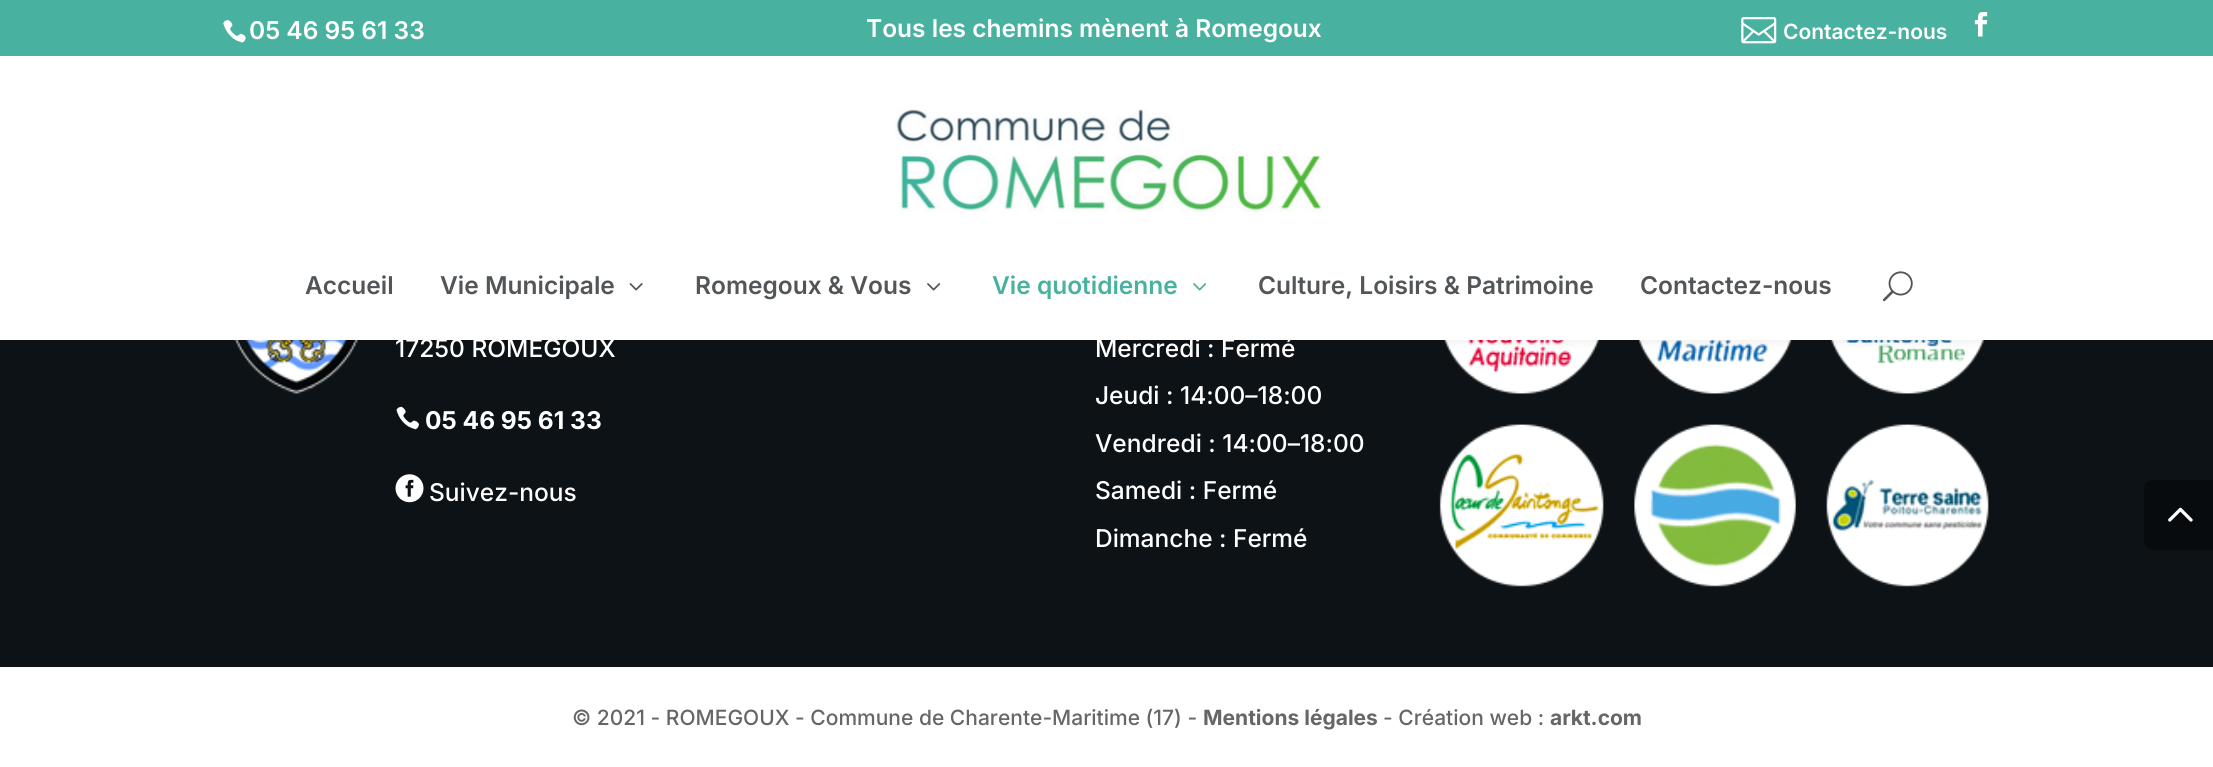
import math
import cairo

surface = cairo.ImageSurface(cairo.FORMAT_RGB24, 2213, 767)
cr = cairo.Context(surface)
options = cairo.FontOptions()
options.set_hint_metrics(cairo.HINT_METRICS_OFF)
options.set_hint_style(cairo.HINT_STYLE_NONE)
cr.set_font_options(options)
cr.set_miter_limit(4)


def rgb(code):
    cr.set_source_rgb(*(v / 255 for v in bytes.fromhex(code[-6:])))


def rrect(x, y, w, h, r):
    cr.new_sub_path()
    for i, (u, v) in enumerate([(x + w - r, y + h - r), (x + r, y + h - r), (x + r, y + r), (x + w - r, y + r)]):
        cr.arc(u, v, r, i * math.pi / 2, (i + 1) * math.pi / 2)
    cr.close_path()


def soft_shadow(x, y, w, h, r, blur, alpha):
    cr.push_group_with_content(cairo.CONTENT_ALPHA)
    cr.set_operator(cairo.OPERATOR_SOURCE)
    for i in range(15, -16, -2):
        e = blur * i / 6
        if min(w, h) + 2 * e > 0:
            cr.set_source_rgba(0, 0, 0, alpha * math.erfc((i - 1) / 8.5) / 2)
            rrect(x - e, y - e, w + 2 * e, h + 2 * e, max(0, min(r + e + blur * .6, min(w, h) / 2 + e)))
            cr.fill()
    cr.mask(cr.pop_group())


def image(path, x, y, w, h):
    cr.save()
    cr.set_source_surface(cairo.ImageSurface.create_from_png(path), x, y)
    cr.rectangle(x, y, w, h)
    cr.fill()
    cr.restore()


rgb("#0c1216")
cr.paint()
image("img/9.png", 234, 340, 125, 54)
image("img/12.png", 1443, 340, 157, 54)
image("img/13.png", 1638, 340, 155, 54)
image("img/14.png", 1830, 340, 155, 54)
rgb("#000000")
soft_shadow(0, 56, 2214, 284, 0, 6, 0.1)
rgb("#48b19f")
cr.rectangle(0, 0, 2213, 56)
cr.fill()
image("img/1.png", 223, 20, 23, 23)
image("img/2.png", 1741, 17, 36, 27)
image("img/3.png", 1974, 12, 14, 25)
rgb("#ffffff")
cr.rectangle(0, 56, 2213, 284)
cr.fill()
image("img/4.png", 895, 109, 427, 103)
image("img/5.png", 629, 283, 14, 8)
image("img/6.png", 927, 283, 14, 8)
image("img/7.png", 1193, 283, 14, 8)
image("img/8.png", 1882, 271, 31, 31)
image("img/10.png", 396, 406, 23, 24)
image("img/11.png", 395, 474, 29, 29)
image("img/15.png", 1439, 424, 165, 163)
image("img/16.png", 1634, 424, 162, 163)
image("img/17.png", 1826, 424, 163, 163)
cr.rectangle(0, 667, 2213, 100)
cr.fill()
rgb("#070b0d")
cr.new_path()
cr.move_to(2153, 480)
cr.line_to(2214, 480)
cr.line_to(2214, 550)
cr.line_to(2153, 550)
cr.curve_to(2148, 550, 2144, 546, 2144, 541)
cr.line_to(2144, 489)
cr.curve_to(2144, 484, 2148, 480, 2153, 480)
cr.close_path()
cr.fill()
image("img/18.png", 2168, 507, 25, 15)
cr.select_font_face("Inter SemiBold")
cr.set_font_size(24.5)
rgb("#ffffff")
cr.move_to(249, 39)
cr.show_text("05 46 95 61 33")
cr.move_to(866, 37)
cr.show_text("Tous les chemins mènent à Romegoux")
cr.set_font_size(21)
cr.move_to(1783, 39)
cr.show_text("Contactez-nous")
cr.set_font_size(24.5)
rgb("#525659")
for x, y, s in [
    (305, 294, "Accueil"),
    (440, 294, "Vie Municipale"),
    (695, 294, "Romegoux & Vous"),
]:
    cr.move_to(x, y)
    cr.show_text(s)
rgb("#48b19f")
cr.move_to(992, 294)
cr.show_text("Vie quotidienne")
rgb("#525659")
cr.move_to(1258, 294)
cr.show_text("Culture, Loisirs & Patrimoine")
cr.move_to(1640, 294)
cr.show_text("Contactez-nous")
cr.select_font_face("Inter Medium")
rgb("#ffffff")
cr.move_to(395, 357)
cr.show_text("17250 ROMEGOUX")
cr.select_font_face("Inter", cairo.FONT_SLANT_NORMAL, cairo.FONT_WEIGHT_BOLD)
cr.move_to(425, 429)
cr.show_text("05 46 95 61 33")
cr.select_font_face("Inter Medium")
for x, y, s in [
    (429, 501, "Suivez-nous"),
    (1095, 357, "Mercredi : Fermé"),
    (1095, 404, "Jeudi : 14:00–18:00"),
    (1095, 452, "Vendredi : 14:00–18:00"),
    (1095, 499, "Samedi : Fermé"),
    (1095, 547, "Dimanche : Fermé"),
]:
    cr.move_to(x, y)
    cr.show_text(s)
cr.set_font_size(21)
rgb("#666666")
cr.move_to(572, 725)
cr.show_text("© 2021 - ROMEGOUX - Commune de Charente-Maritime (17) -")
cr.select_font_face("Inter", cairo.FONT_SLANT_NORMAL, cairo.FONT_WEIGHT_BOLD)
cr.move_to(1203, 725)
cr.show_text("Mentions légales")
cr.select_font_face("Inter Medium")
cr.move_to(1383, 725)
cr.show_text("- Création web :")
cr.select_font_face("Inter", cairo.FONT_SLANT_NORMAL, cairo.FONT_WEIGHT_BOLD)
cr.move_to(1550, 725)
cr.show_text("arkt.com")
surface.write_to_png("page.png")
